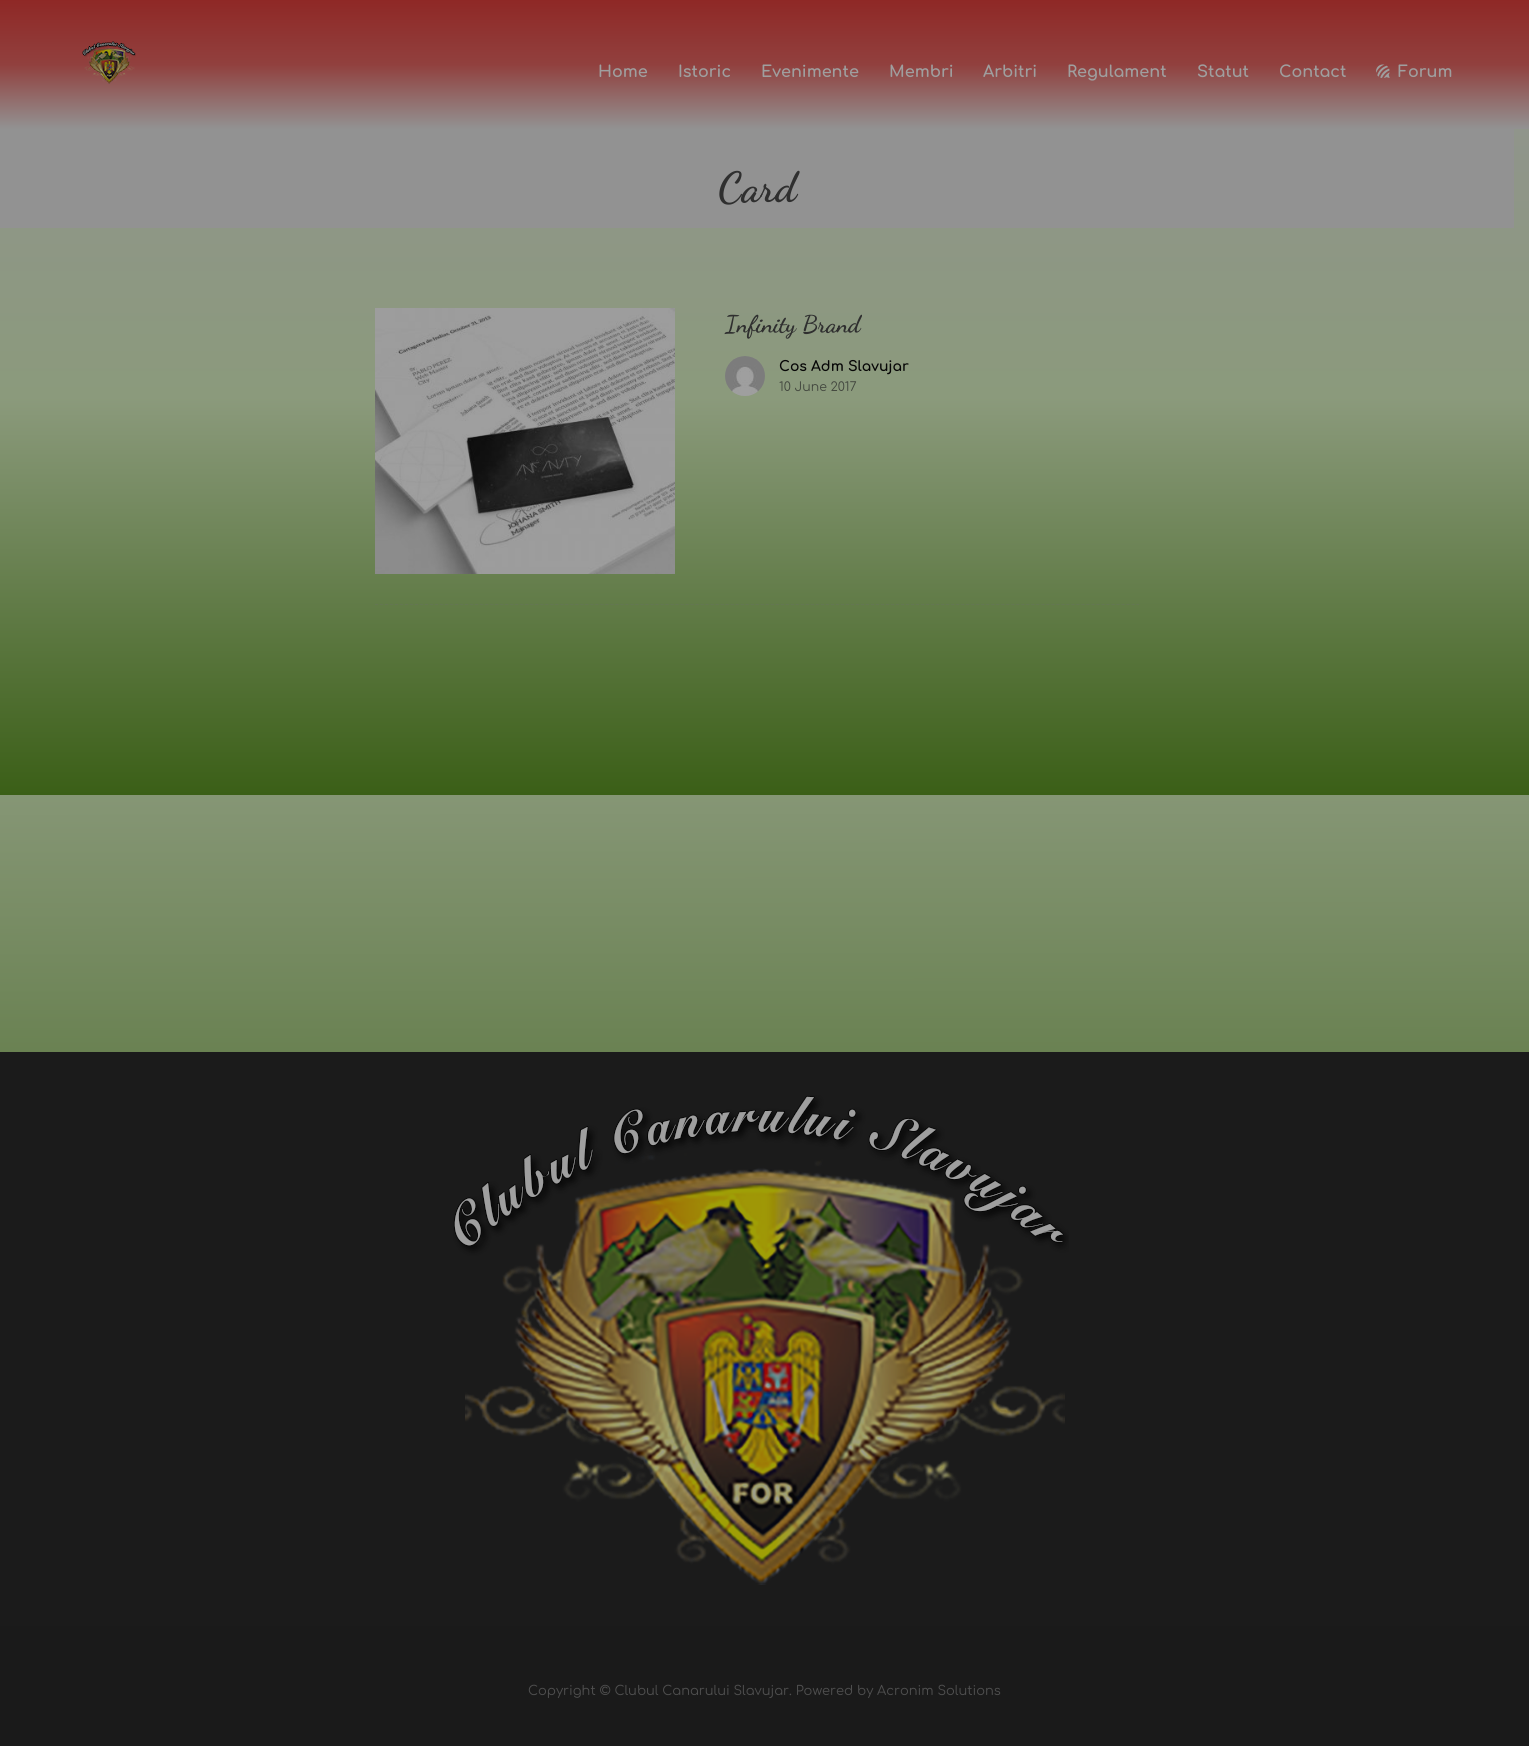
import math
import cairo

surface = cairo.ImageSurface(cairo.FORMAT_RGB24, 1529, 1746)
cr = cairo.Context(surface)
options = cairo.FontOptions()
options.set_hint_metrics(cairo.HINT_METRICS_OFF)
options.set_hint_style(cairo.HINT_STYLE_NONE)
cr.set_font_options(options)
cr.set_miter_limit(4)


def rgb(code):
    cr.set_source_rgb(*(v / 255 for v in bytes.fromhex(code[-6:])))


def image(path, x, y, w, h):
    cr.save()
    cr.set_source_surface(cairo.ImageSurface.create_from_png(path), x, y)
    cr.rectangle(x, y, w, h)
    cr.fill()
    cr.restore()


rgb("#ffffff")
cr.paint()
gradient = cairo.LinearGradient(764, 0, 765, 1489)
gradient.add_color_stop_rgba(0, 0.573, 0.573, 0.573, 1)
gradient.add_color_stop_rgba(0.5, 0.545, 0.604, 0.486, 1)
gradient.add_color_stop_rgba(1, 0.231, 0.373, 0.09, 1)
cr.set_source(gradient)
cr.rectangle(0, 795, 1529, 257)
cr.fill()
gradient = cairo.LinearGradient(765, 0, 765, 795)
gradient.add_color_stop_rgba(0, 0.573, 0.573, 0.573, 1)
gradient.add_color_stop_rgba(0.5, 0.545, 0.604, 0.486, 1)
gradient.add_color_stop_rgba(1, 0.231, 0.373, 0.09, 1)
cr.set_source(gradient)
cr.rectangle(0, 129, 1529, 666)
cr.fill()
gradient = cairo.LinearGradient(765, 0, 765, 129)
gradient.add_color_stop_rgba(0, 0.561, 0.157, 0.149, 1)
gradient.add_color_stop_rgba(0.5, 0.569, 0.251, 0.243, 1)
gradient.add_color_stop_rgba(1, 0.573, 0.573, 0.573, 1)
cr.set_source(gradient)
cr.rectangle(0, 0, 1529, 129)
cr.fill()
image("img/1.png", 82, 41, 54, 43)
image("img/2.png", 1376, 64, 14, 14)
rgb("#929292")
cr.rectangle(0, 129, 1514, 99)
cr.fill()
cr.new_path()
cr.move_to(375, 604.5)
cr.line_to(1139, 604.5)
rgb("#647652")
cr.set_line_width(1)
cr.set_dash([3, 2.01])
cr.stroke()
image("img/3.png", 375, 308, 300, 266)
image("img/4.png", 725, 356, 40, 40)
rgb("#1b1b1b")
cr.rectangle(0, 1052, 1529, 574)
cr.fill()
image("img/5.png", 453, 1095, 616, 490)
rgb("#1a1a1a")
cr.rectangle(0, 1626, 1529, 120)
cr.fill()
cr.select_font_face("Comfortaa", cairo.FONT_SLANT_NORMAL, cairo.FONT_WEIGHT_BOLD)
cr.set_font_size(16)
rgb("#9f9f9f")
for x, y, s in [
    (598, 77, "Home"),
    (678, 77, "Istoric"),
    (761, 77, "Evenimente"),
    (889, 77, "Membri"),
    (983, 77, "Arbitri"),
    (1067, 77, "Regulament"),
    (1197, 77, "Statut"),
    (1279, 77, "Contact"),
    (1398, 77, "Forum"),
]:
    cr.move_to(x, y)
    cr.show_text(s)
cr.select_font_face("Dancing Script", cairo.FONT_SLANT_NORMAL, cairo.FONT_WEIGHT_BOLD)
cr.set_font_size(42)
rgb("#2f2f2f")
cr.move_to(718, 201)
cr.show_text("Card")
cr.set_font_size(24)
cr.move_to(725, 332)
cr.show_text("Infinity Brand")
cr.select_font_face("Comfortaa", cairo.FONT_SLANT_NORMAL, cairo.FONT_WEIGHT_BOLD)
cr.set_font_size(14)
rgb("#060606")
cr.move_to(779, 371)
cr.show_text("Cos Adm Slavujar")
cr.select_font_face("Comfortaa")
cr.set_font_size(12.5)
rgb("#43483f")
cr.move_to(779, 391)
cr.show_text("10 June 2017")
cr.set_font_size(13)
rgb("#4f4f4f")
cr.move_to(528, 1695)
cr.show_text("Copyright © Clubul Canarului Slavujar. Powered by Acronim Solutions")
surface.write_to_png("page.png")
